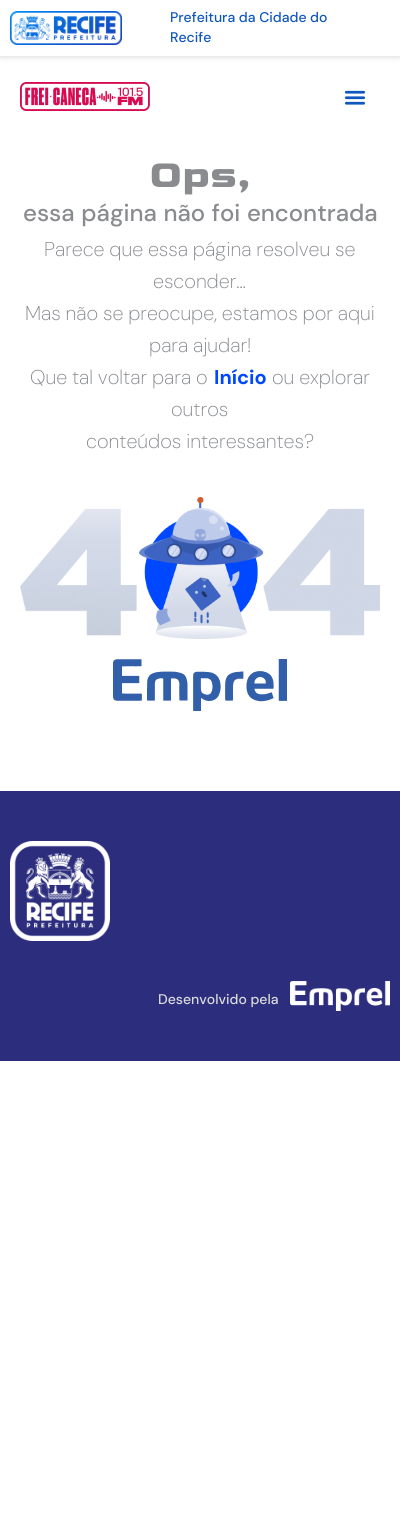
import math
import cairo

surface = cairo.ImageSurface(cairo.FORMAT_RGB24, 400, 1518)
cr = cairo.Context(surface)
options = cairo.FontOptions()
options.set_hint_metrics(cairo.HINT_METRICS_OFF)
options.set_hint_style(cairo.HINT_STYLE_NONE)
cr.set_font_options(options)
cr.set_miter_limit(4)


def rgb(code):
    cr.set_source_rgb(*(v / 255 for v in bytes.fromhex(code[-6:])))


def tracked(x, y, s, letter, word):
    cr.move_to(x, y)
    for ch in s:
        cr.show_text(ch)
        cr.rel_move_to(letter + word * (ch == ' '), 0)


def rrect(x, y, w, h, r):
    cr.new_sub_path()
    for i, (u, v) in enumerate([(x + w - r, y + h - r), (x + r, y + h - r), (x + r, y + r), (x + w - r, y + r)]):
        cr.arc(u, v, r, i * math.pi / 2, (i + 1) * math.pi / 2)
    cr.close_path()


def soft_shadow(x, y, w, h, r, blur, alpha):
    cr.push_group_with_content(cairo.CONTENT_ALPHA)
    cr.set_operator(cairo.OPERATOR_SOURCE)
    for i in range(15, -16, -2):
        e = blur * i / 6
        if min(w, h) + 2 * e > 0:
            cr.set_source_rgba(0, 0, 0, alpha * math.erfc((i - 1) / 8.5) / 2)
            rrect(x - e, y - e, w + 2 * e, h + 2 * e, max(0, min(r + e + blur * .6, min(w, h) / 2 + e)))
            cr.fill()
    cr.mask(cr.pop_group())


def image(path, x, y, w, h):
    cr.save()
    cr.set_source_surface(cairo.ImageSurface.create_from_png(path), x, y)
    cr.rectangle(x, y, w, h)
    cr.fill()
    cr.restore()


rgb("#ffffff")
cr.paint()
cr.save()
cr.rectangle(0, 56, 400, 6)
cr.clip()
rgb("#cccccc")
soft_shadow(0, 0, 400, 56, 0, 3, 1)
cr.restore()
image("img/1.png", 10, 11, 112, 34)
image("img/2.png", 20, 82, 130, 29)
image("img/3.png", 344, 90, 22, 15)
image("img/4.png", 20, 497, 360, 142)
image("img/5.png", 113, 659, 174, 52)
rgb("#2c2d7d")
cr.rectangle(0, 791, 400, 270)
cr.fill()
image("img/6.png", 10, 841, 100, 100)
image("img/7.png", 290, 981, 100, 30)
cr.select_font_face("DM Sans Medium")
cr.set_font_size(14)
rgb("#0f57bf")
cr.move_to(170, 22)
cr.show_text("Prefeitura da Cidade do")
cr.move_to(170, 42)
cr.show_text("Recife")
cr.select_font_face("Goldman", cairo.FONT_SLANT_NORMAL, cairo.FONT_WEIGHT_BOLD)
cr.set_font_size(40)
rgb("#898b8f")
cr.move_to(149, 187)
cr.show_text("Ops,")
cr.select_font_face("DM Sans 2 Medium")
cr.set_font_size(24)
tracked(23, 221, "essa página não foi encontrada", 0, 0.5)
cr.select_font_face("DM Sans ExtraLight")
cr.set_font_size(20)
for x, y, s in [
    (44, 256, "Parece que essa página resolveu se"),
    (153, 288, "esconder…"),
    (25, 320, "Mas não se preocupe, estamos por aqui"),
    (149, 352, "para ajudar!"),
    (30, 384, "Que tal voltar para o"),
]:
    cr.move_to(x, y)
    cr.show_text(s)
cr.select_font_face("DM Sans", cairo.FONT_SLANT_NORMAL, cairo.FONT_WEIGHT_BOLD)
rgb("#0048ff")
cr.move_to(214, 384)
cr.show_text("Início")
cr.select_font_face("DM Sans ExtraLight")
rgb("#898b8f")
for x, y, s in [
    (272, 384, "ou explorar"),
    (171, 416, "outros"),
    (86, 448, "conteúdos interessantes?"),
]:
    cr.move_to(x, y)
    cr.show_text(s)
cr.select_font_face("DM Sans Medium")
cr.set_font_size(14)
rgb("#dbdbdb")
cr.move_to(158, 1004)
cr.show_text("Desenvolvido pela")
surface.write_to_png("page.png")
